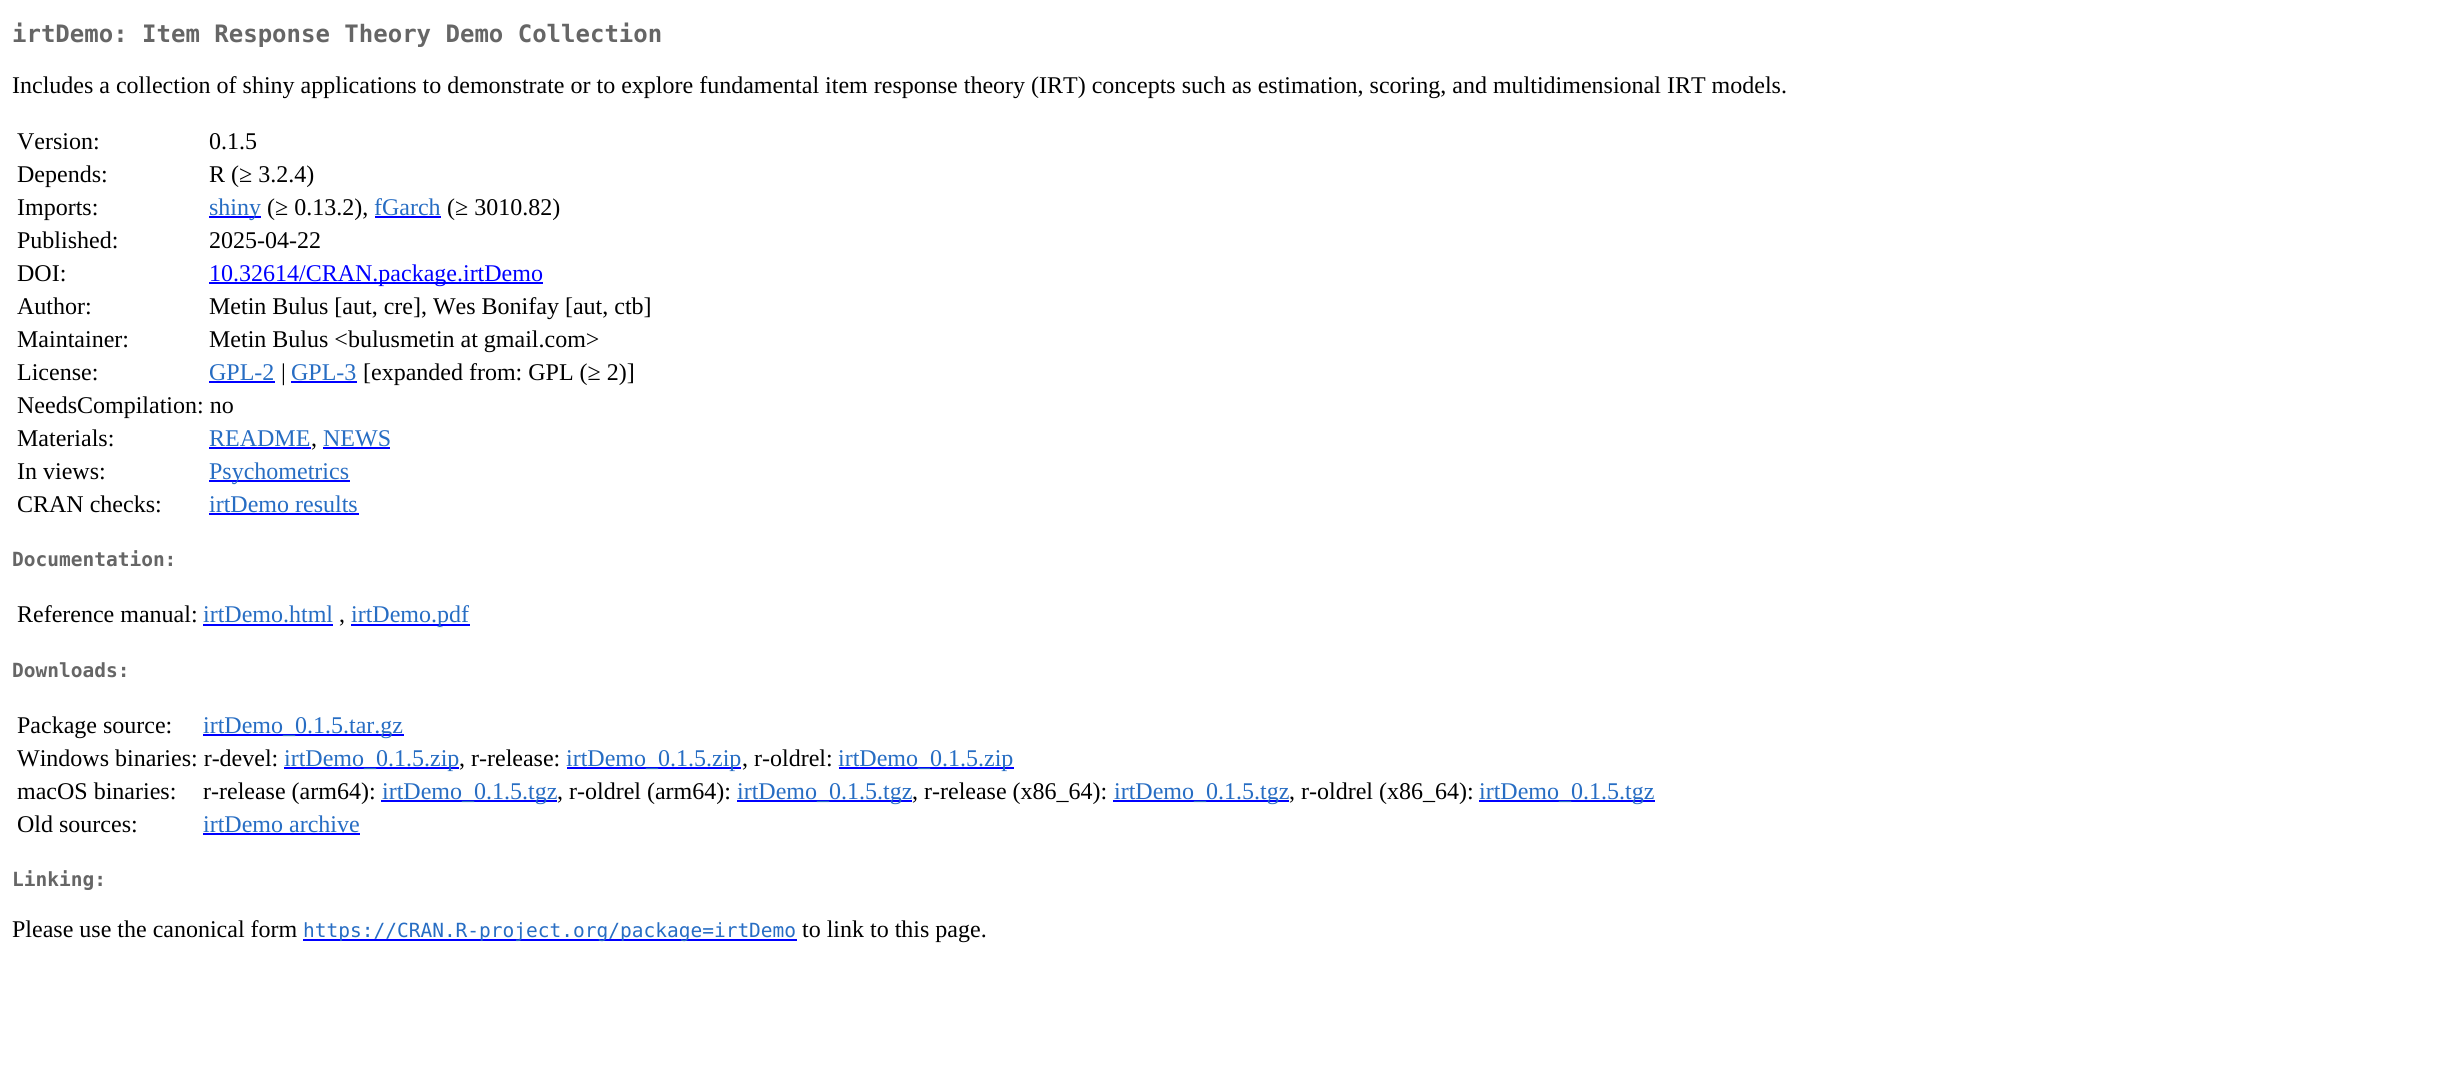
import math
import cairo

surface = cairo.ImageSurface(cairo.FORMAT_RGB24, 2461, 1082)
cr = cairo.Context(surface)
options = cairo.FontOptions()
options.set_hint_metrics(cairo.HINT_METRICS_OFF)
options.set_hint_style(cairo.HINT_STYLE_NONE)
cr.set_font_options(options)
cr.set_miter_limit(4)


def rgb(code):
    cr.set_source_rgb(*(v / 255 for v in bytes.fromhex(code[-6:])))


rgb("#ffffff")
cr.paint()
for x, y, w, h, color in [
    (209, 216, 52, 2, "#0000ff"),
    (375, 216, 66, 2, "#0000ff"),
    (209, 282, 334, 2, "#0000ff"),
    (209, 381, 66, 2, "#0000ff"),
    (291, 381, 66, 2, "#0000ff"),
    (209, 447, 102, 2, "#0000ff"),
    (323, 447, 67, 2, "#0000ff"),
    (209, 480, 141, 2, "#0000ff"),
    (209, 513, 150, 2, "#0000ff"),
    (203, 624, 130, 2, "#0000ff"),
    (351, 624, 119, 2, "#0000ff"),
    (203, 734, 201, 2, "#0000ff"),
    (284, 767, 175, 2, "#0000ff"),
    (567, 767, 174, 2, "#0000ff"),
    (839, 767, 175, 2, "#0000ff"),
    (381, 800, 176, 2, "#0000ff"),
    (737, 800, 175, 2, "#0000ff"),
    (1113, 800, 176, 2, "#0000ff"),
    (1479, 800, 176, 2, "#0000ff"),
    (203, 833, 157, 2, "#0000ff"),
    (303, 939, 494, 2, "#0000ff"),
]:
    rgb(color)
    cr.rectangle(x, y, w, h)
    cr.fill()
cr.select_font_face("DejaVu Sans Mono", cairo.FONT_SLANT_NORMAL, cairo.FONT_WEIGHT_BOLD)
cr.set_font_size(24)
rgb("#666666")
cr.move_to(12, 42)
cr.show_text("irtDemo: Item Response Theory Demo Collection")
cr.select_font_face("Liberation Serif")
rgb("#000000")
for x, y, s in [
    (12, 93, "Includes a collection of shiny applications to demonstrate or to explore fundamental item response theory (IRT) concepts such as estimation, scoring, and multidimensional IRT models."),
    (17, 149, "Version:"),
    (209, 149, "0.1.5"),
    (17, 182, "Depends:"),
    (209, 182, "R (≥ 3.2.4)"),
    (17, 215, "Imports:"),
]:
    cr.move_to(x, y)
    cr.show_text(s)
rgb("#276dc3")
cr.move_to(209, 215)
cr.show_text("shiny")
rgb("#000000")
cr.move_to(267, 215)
cr.show_text("(≥ 0.13.2),")
rgb("#276dc3")
cr.move_to(374, 215)
cr.show_text("fGarch")
rgb("#000000")
for x, y, s in [
    (447, 215, "(≥ 3010.82)"),
    (17, 248, "Published:"),
    (209, 248, "2025-04-22"),
    (17, 281, "DOI:"),
]:
    cr.move_to(x, y)
    cr.show_text(s)
rgb("#0000ff")
cr.move_to(209, 281)
cr.show_text("10.32614/CRAN.package.irtDemo")
rgb("#000000")
for x, y, s in [
    (17, 314, "Author:"),
    (209, 314, "Metin Bulus [aut, cre], Wes Bonifay [aut, ctb]"),
    (17, 347, "Maintainer:"),
    (209, 347, "Metin Bulus <bulusmetin at gmail.com>"),
    (17, 380, "License:"),
]:
    cr.move_to(x, y)
    cr.show_text(s)
rgb("#276dc3")
cr.move_to(209, 380)
cr.show_text("GPL-2")
rgb("#000000")
cr.move_to(281, 380)
cr.show_text("|")
rgb("#276dc3")
cr.move_to(291, 380)
cr.show_text("GPL-3")
rgb("#000000")
for x, y, s in [
    (363, 380, "[expanded from: GPL (≥ 2)]"),
    (17, 413, "NeedsCompilation: no"),
    (17, 446, "Materials:"),
]:
    cr.move_to(x, y)
    cr.show_text(s)
rgb("#276dc3")
cr.move_to(209, 446)
cr.show_text("README")
rgb("#000000")
cr.move_to(311, 446)
cr.show_text(",")
rgb("#276dc3")
cr.move_to(323, 446)
cr.show_text("NEWS")
rgb("#000000")
cr.move_to(17, 479)
cr.show_text("In views:")
rgb("#276dc3")
cr.move_to(209, 479)
cr.show_text("Psychometrics")
rgb("#000000")
cr.move_to(17, 512)
cr.show_text("CRAN checks:")
rgb("#276dc3")
cr.move_to(209, 512)
cr.show_text("irtDemo results")
cr.select_font_face("DejaVu Sans Mono", cairo.FONT_SLANT_NORMAL, cairo.FONT_WEIGHT_BOLD)
cr.set_font_size(19.5)
rgb("#666666")
cr.move_to(12, 566)
cr.show_text("Documentation:")
cr.select_font_face("Liberation Serif")
cr.set_font_size(24)
rgb("#000000")
cr.move_to(17, 622)
cr.show_text("Reference manual:")
rgb("#276dc3")
cr.move_to(203, 622)
cr.show_text("irtDemo.html")
rgb("#000000")
cr.move_to(339, 622)
cr.show_text(",")
rgb("#276dc3")
cr.move_to(351, 622)
cr.show_text("irtDemo.pdf")
cr.select_font_face("DejaVu Sans Mono", cairo.FONT_SLANT_NORMAL, cairo.FONT_WEIGHT_BOLD)
cr.set_font_size(19.5)
rgb("#666666")
cr.move_to(12, 677)
cr.show_text("Downloads:")
cr.select_font_face("Liberation Serif")
cr.set_font_size(24)
rgb("#000000")
cr.move_to(17, 733)
cr.show_text("Package source:")
rgb("#276dc3")
cr.move_to(203, 733)
cr.show_text("irtDemo_0.1.5.tar.gz")
rgb("#000000")
cr.move_to(17, 766)
cr.show_text("Windows binaries: r-devel:")
rgb("#276dc3")
cr.move_to(284, 766)
cr.show_text("irtDemo_0.1.5.zip")
rgb("#000000")
cr.move_to(459, 766)
cr.show_text(", r-release:")
rgb("#276dc3")
cr.move_to(566, 766)
cr.show_text("irtDemo_0.1.5.zip")
rgb("#000000")
cr.move_to(742, 766)
cr.show_text(", r-oldrel:")
rgb("#276dc3")
cr.move_to(838, 766)
cr.show_text("irtDemo_0.1.5.zip")
rgb("#000000")
cr.move_to(17, 799)
cr.show_text("macOS binaries:")
cr.move_to(203, 799)
cr.show_text("r-release (arm64):")
rgb("#276dc3")
cr.move_to(382, 799)
cr.show_text("irtDemo_0.1.5.tgz")
rgb("#000000")
cr.move_to(557, 799)
cr.show_text(", r-oldrel (arm64):")
rgb("#276dc3")
cr.move_to(737, 799)
cr.show_text("irtDemo_0.1.5.tgz")
rgb("#000000")
cr.move_to(912, 799)
cr.show_text(", r-release (x86_64):")
rgb("#276dc3")
cr.move_to(1114, 799)
cr.show_text("irtDemo_0.1.5.tgz")
rgb("#000000")
cr.move_to(1289, 799)
cr.show_text(", r-oldrel (x86_64):")
rgb("#276dc3")
cr.move_to(1479, 799)
cr.show_text("irtDemo_0.1.5.tgz")
rgb("#000000")
cr.move_to(17, 832)
cr.show_text("Old sources:")
rgb("#276dc3")
cr.move_to(203, 832)
cr.show_text("irtDemo archive")
cr.select_font_face("DejaVu Sans Mono", cairo.FONT_SLANT_NORMAL, cairo.FONT_WEIGHT_BOLD)
cr.set_font_size(19.5)
rgb("#666666")
cr.move_to(12, 886)
cr.show_text("Linking:")
cr.select_font_face("Liberation Serif")
cr.set_font_size(24)
rgb("#000000")
cr.move_to(12, 937)
cr.show_text("Please use the canonical form")
cr.select_font_face("DejaVu Sans Mono")
cr.set_font_size(19.5)
rgb("#276dc3")
cr.move_to(303, 937)
cr.show_text("https://CRAN.R-project.org/package=irtDemo")
cr.select_font_face("Liberation Serif")
cr.set_font_size(24)
rgb("#000000")
cr.move_to(802, 937)
cr.show_text("to link to this page.")
surface.write_to_png("page.png")
